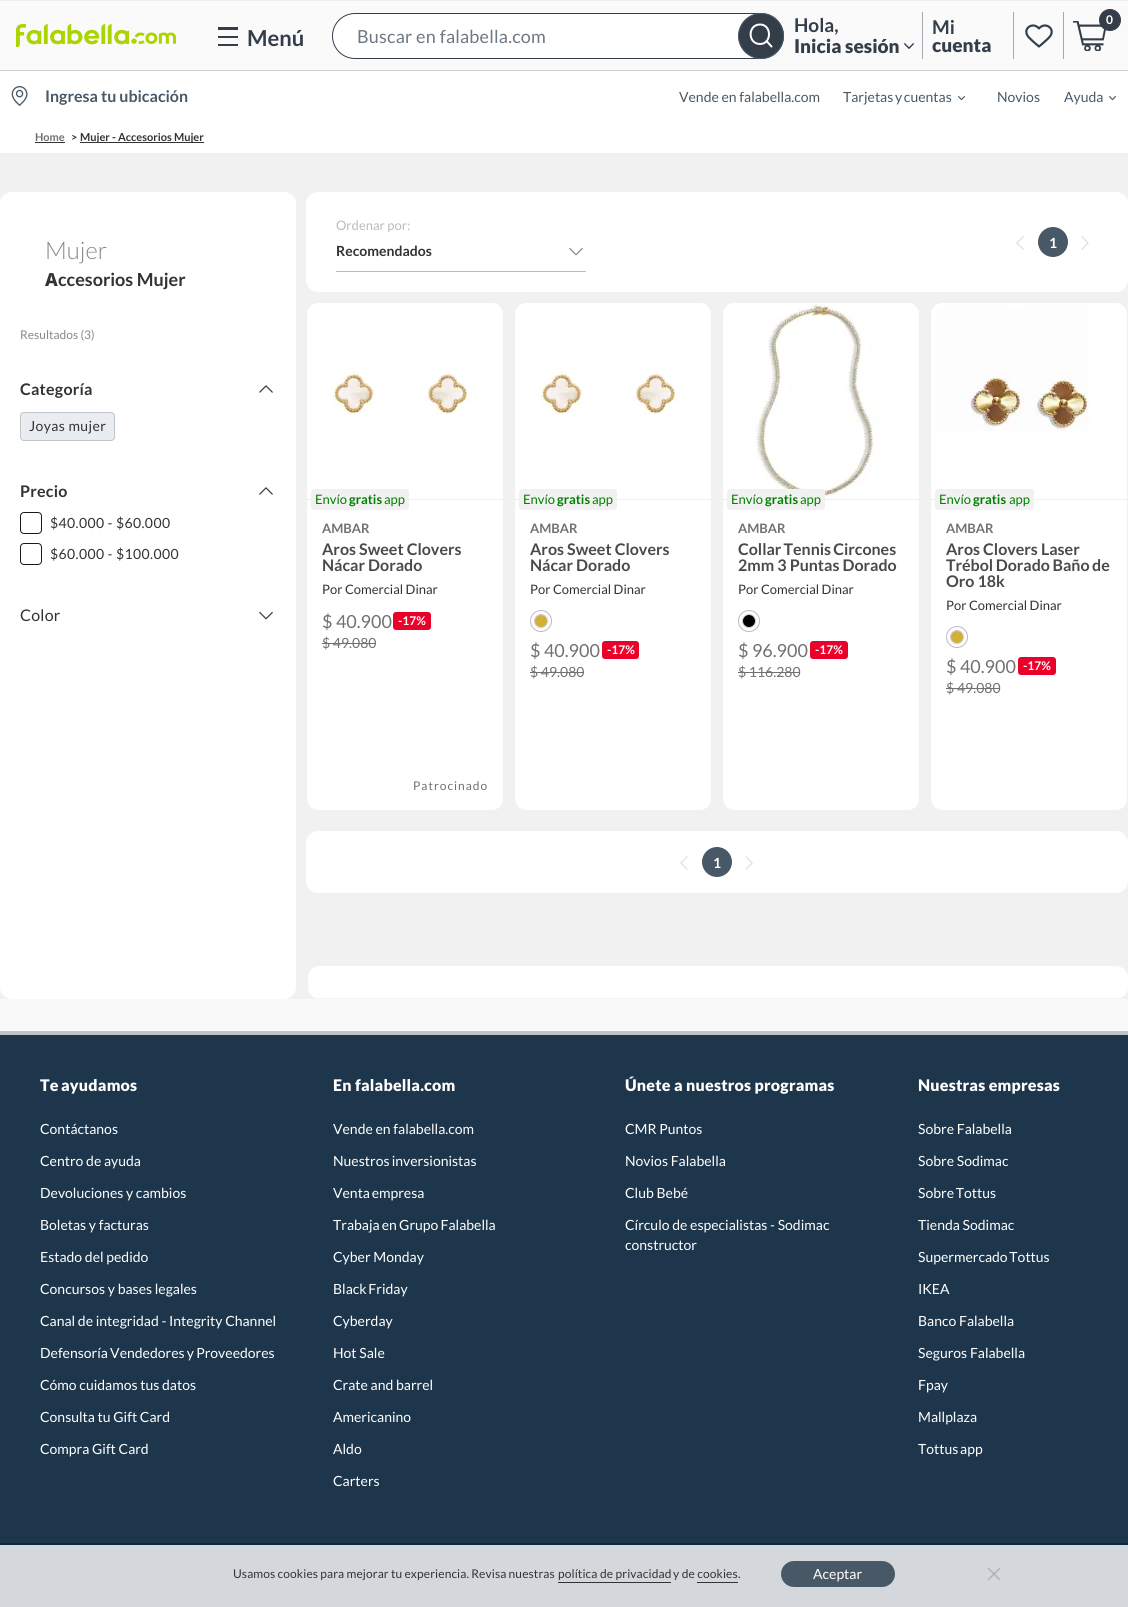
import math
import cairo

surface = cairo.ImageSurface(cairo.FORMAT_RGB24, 1128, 1607)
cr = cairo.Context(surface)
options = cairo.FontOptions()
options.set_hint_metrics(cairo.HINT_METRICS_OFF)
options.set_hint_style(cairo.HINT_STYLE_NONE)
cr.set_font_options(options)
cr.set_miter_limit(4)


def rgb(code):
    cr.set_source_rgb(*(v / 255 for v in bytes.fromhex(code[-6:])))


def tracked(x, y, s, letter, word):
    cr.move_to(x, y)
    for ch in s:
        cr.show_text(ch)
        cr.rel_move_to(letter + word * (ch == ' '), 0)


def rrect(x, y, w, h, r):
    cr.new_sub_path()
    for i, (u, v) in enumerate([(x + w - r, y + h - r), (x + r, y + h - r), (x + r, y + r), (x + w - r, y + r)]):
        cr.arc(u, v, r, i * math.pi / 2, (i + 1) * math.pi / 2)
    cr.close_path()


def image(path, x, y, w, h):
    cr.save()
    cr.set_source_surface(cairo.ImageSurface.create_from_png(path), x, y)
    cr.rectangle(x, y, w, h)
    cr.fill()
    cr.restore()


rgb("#ffffff")
cr.paint()
rgb("#fafafa")
cr.rectangle(0, 1, 1128, 69)
cr.fill()
rgb("#eeeeee")
cr.rectangle(0, 0, 1128, 1)
cr.fill()
image("img/1.png", 16, 24, 160, 23)
for x, y, w, h, color in [
    (218, 36, 20, 2, "#343e49"),
    (218, 27, 20, 3, "#343e49"),
    (218, 44, 20, 2, "#343e49"),
]:
    rgb(color)
    cr.rectangle(x, y, w, h)
    cr.fill()
rgb("#ffffff")
rrect(332.5, 13.5, 451, 45, 22.5)
cr.fill_preserve()
rgb("#343e49")
cr.set_line_width(1)
cr.stroke()
cr.arc(761, 36, 22.5, 0, 2 * math.pi)
cr.fill_preserve()
rgb("#495867")
cr.stroke()
cr.new_path()
cr.move_to(760, 44)
cr.curve_to(772, 44, 772, 24.5, 760, 24.5)
cr.curve_to(747.5, 24.5, 747.5, 44, 760, 44)
cr.close_path()
cr.move_to(771.5, 46.5)
cr.line_to(766.5, 41)
rgb("#ffffff")
cr.set_line_width(2)
cr.set_line_cap(cairo.LINE_CAP_ROUND)
cr.set_line_join(cairo.LINE_JOIN_ROUND)
cr.stroke()
rgb("#a2a9b1")
cr.rectangle(922, 12, 1, 47)
cr.fill()
image("img/2.png", 904, 43, 10, 6)
cr.rectangle(1013, 12, 1, 47)
cr.fill()
cr.rectangle(1063, 12, 1, 47)
cr.fill()
image("img/3.png", 1025, 24, 28, 24)
image("img/4.png", 1073, 21, 33, 30)
rgb("#343e49")
cr.arc(1110, 20, 10.5, 0, 2 * math.pi)
cr.fill_preserve()
cr.set_line_width(1)
cr.set_line_cap(cairo.LINE_CAP_BUTT)
cr.set_line_join(cairo.LINE_JOIN_MITER)
cr.stroke()
rgb("#cad1d9")
cr.rectangle(0, 70, 1128, 1)
cr.fill()
image("img/5.png", 11, 86, 17, 20)
image("img/6.png", 958, 96, 7, 5)
image("img/6.png", 1109, 96, 7, 5)
for x, y, w, h, color in [
    (35, 142, 30, 1, "#333333"),
    (80, 142, 124, 1, "#333333"),
    (0, 153, 1128, 846, "#f1f1f1"),
]:
    rgb(color)
    cr.rectangle(x, y, w, h)
    cr.fill()
rgb("#ffffff")
rrect(0, 192, 296, 807, 12)
cr.fill()
image("img/7.png", 259, 385, 14, 8)
rgb("#e9edf1")
rrect(20.5, 412.5, 94, 28, 3.5)
cr.fill_preserve()
rgb("#bfc4c9")
cr.stroke()
image("img/7.png", 259, 487, 14, 8)
rrect(20.5, 512.5, 21, 21, 3.5)
rgb("#1a1a1a")
cr.stroke()
rrect(20.5, 543.5, 21, 21, 3.5)
cr.stroke()
image("img/8.png", 259, 611, 14, 9)
rgb("#ffffff")
rrect(306, 192, 822, 100, 12)
cr.fill()
rgb("#bbbbbb")
cr.rectangle(336, 271, 250, 1)
cr.fill()
image("img/9.png", 569, 247, 14, 9)
image("img/10.png", 1016, 236, 8, 14)
rgb("#495867")
cr.arc(1053, 242, 15, 0, 2 * math.pi)
cr.fill()
image("img/11.png", 1081, 236, 8, 14)
rgb("#ffffff")
rrect(306.5, 302.5, 197, 508, 11.5)
cr.fill_preserve()
rgb("#f0f0f0")
cr.stroke()
image("img/12.png", 312, 304, 186, 110)
cr.rectangle(307, 499, 196, 1)
cr.fill()
rgb("#f1f1f1")
rrect(311, 489, 98, 21, 3)
cr.fill()
rgb("#eb0029")
rrect(393, 612, 38, 18, 3)
cr.fill()
rgb("#717171")
cr.rectangle(322, 643, 54, 1)
cr.fill()
rgb("#ffffff")
rrect(514.5, 302.5, 197, 508, 11.5)
cr.fill_preserve()
rgb("#f0f0f0")
cr.stroke()
image("img/12.png", 520, 304, 186, 110)
cr.rectangle(515, 499, 196, 1)
cr.fill()
rgb("#f1f1f1")
rrect(519, 489, 98, 21, 3)
cr.fill()
cr.arc(541, 621, 10.5, 0, 2 * math.pi)
rgb("#bbbbbb")
cr.stroke()
rgb("#d4af37")
cr.arc(541, 621, 6.5, 0, 2 * math.pi)
cr.fill_preserve()
rgb("#d2d2d2")
cr.stroke()
rgb("#eb0029")
rrect(602, 641, 37, 18, 3)
cr.fill()
rgb("#717171")
cr.rectangle(530, 672, 54, 1)
cr.fill()
rgb("#ffffff")
rrect(722.5, 302.5, 197, 508, 11.5)
cr.fill_preserve()
rgb("#f0f0f0")
cr.stroke()
image("img/13.png", 728, 303, 186, 196)
cr.rectangle(723, 499, 196, 1)
cr.fill()
rgb("#f1f1f1")
rrect(727, 489, 98, 21, 3)
cr.fill()
cr.arc(749, 621, 10.5, 0, 2 * math.pi)
rgb("#bbbbbb")
cr.stroke()
rgb("#000000")
cr.arc(749, 621, 6.5, 0, 2 * math.pi)
cr.fill_preserve()
rgb("#d2d2d2")
cr.stroke()
rgb("#eb0029")
rrect(810, 641, 38, 18, 3)
cr.fill()
rgb("#717171")
cr.rectangle(738, 672, 62, 1)
cr.fill()
rgb("#ffffff")
rrect(930.5, 302.5, 197, 508, 11.5)
cr.fill_preserve()
rgb("#f0f0f0")
cr.stroke()
image("img/14.png", 936, 304, 153, 127)
cr.rectangle(931, 499, 196, 1)
cr.fill()
rgb("#f1f1f1")
rrect(935, 489, 99, 21, 3)
cr.fill()
cr.arc(957, 637, 10.5, 0, 2 * math.pi)
rgb("#bbbbbb")
cr.stroke()
rgb("#d4af37")
cr.arc(957, 637, 6.5, 0, 2 * math.pi)
cr.fill_preserve()
rgb("#d2d2d2")
cr.stroke()
rgb("#eb0029")
rrect(1018, 657, 38, 18, 3)
cr.fill()
rgb("#717171")
cr.rectangle(946, 688, 11, 1)
cr.fill()
cr.rectangle(957, 688, 43, 1)
cr.fill()
rgb("#ffffff")
rrect(306, 831, 822, 62, 12)
cr.fill()
image("img/10.png", 680, 856, 8, 14)
rgb("#495867")
cr.arc(717, 862, 15, 0, 2 * math.pi)
cr.fill()
image("img/11.png", 745, 856, 8, 14)
rgb("#ffffff")
rrect(308, 966, 820, 33, 12)
cr.fill()
for x, y, w, h, color in [
    (314, 998, 808, 1, "#f5f5f5"),
    (0, 999, 1128, 32, "#f9f9f9"),
    (0, 1035, 1128, 508, "#1e364b"),
    (0, 1031, 1128, 4, "#bfc4c9"),
    (0, 1543, 1128, 2, "#0c2941"),
    (0, 1545, 1128, 62, "#d4d8dd"),
    (558, 1582, 113, 1, "#333333"),
    (697, 1582, 41, 1, "#333333"),
]:
    rgb(color)
    cr.rectangle(x, y, w, h)
    cr.fill()
rgb("#495867")
rrect(781, 1561, 114, 26, 13)
cr.fill()
image("img/15.png", 987, 1567, 14, 14)
cr.select_font_face("Lato", cairo.FONT_SLANT_NORMAL, cairo.FONT_WEIGHT_BOLD)
cr.set_font_size(22)
rgb("#343e49")
cr.move_to(247, 46)
cr.show_text("Menú")
cr.select_font_face("Lato")
cr.set_font_size(18)
rgb("#6c7883")
tracked(357, 43, "Buscar en falabella.com", 0.2, 0)
cr.select_font_face("Lato", cairo.FONT_SLANT_NORMAL, cairo.FONT_WEIGHT_BOLD)
cr.set_font_size(19)
rgb("#343e49")
cr.move_to(794, 32)
cr.show_text("Hola,")
cr.select_font_face("Lato Black")
cr.move_to(794, 53)
cr.show_text("Inicia sesión")
cr.select_font_face("Lato", cairo.FONT_SLANT_NORMAL, cairo.FONT_WEIGHT_BOLD)
cr.move_to(932, 34)
cr.show_text("Mi")
cr.select_font_face("Lato Black")
cr.move_to(932, 52)
cr.show_text("cuenta")
cr.select_font_face("Lato", cairo.FONT_SLANT_NORMAL, cairo.FONT_WEIGHT_BOLD)
cr.set_font_size(12)
rgb("#ffffff")
cr.move_to(1106, 24)
cr.show_text("0")
cr.set_font_size(16)
rgb("#495867")
cr.move_to(45, 102)
cr.show_text("Ingresa tu ubicación")
cr.select_font_face("Lato")
cr.set_font_size(14)
cr.move_to(679, 102)
cr.show_text("Vende en falabella.com")
tracked(843, 102, "Tarjetas y cuentas", 0, -1)
cr.move_to(997, 102)
cr.show_text("Novios")
cr.move_to(1064, 102)
cr.show_text("Ayuda")
cr.select_font_face("Lato", cairo.FONT_SLANT_NORMAL, cairo.FONT_WEIGHT_BOLD)
cr.set_font_size(11)
rgb("#717171")
cr.move_to(35, 141)
cr.show_text("Home")
rgb("#333333")
cr.move_to(71, 141)
cr.show_text(">")
cr.move_to(80, 141)
cr.show_text("Mujer - Accesorios Mujer")
cr.select_font_face("Lato Light")
cr.set_font_size(24)
rgb("#888888")
cr.move_to(45, 259)
cr.show_text("Mujer")
cr.select_font_face("Noto Sans ExtraBold")
cr.set_font_size(18)
rgb("#333333")
cr.move_to(45, 286)
cr.show_text("A")
cr.select_font_face("Lato", cairo.FONT_SLANT_NORMAL, cairo.FONT_WEIGHT_BOLD)
cr.move_to(58, 286)
cr.show_text("ccesorios Mujer")
cr.select_font_face("Lato")
cr.set_font_size(12)
rgb("#888888")
cr.move_to(20, 339)
cr.show_text("Resultados (3)")
cr.select_font_face("Lato", cairo.FONT_SLANT_NORMAL, cairo.FONT_WEIGHT_BOLD)
cr.set_font_size(16)
rgb("#333333")
tracked(20, 395, "Categoría", 0.25, 0)
cr.select_font_face("Lato")
cr.set_font_size(14)
tracked(29, 431, "Joyas mujer", 0.4, 0)
cr.select_font_face("Lato", cairo.FONT_SLANT_NORMAL, cairo.FONT_WEIGHT_BOLD)
cr.set_font_size(16)
tracked(20, 497, "Precio", 0.25, 0)
cr.select_font_face("Lato")
cr.set_font_size(14)
tracked(50, 528, "$40.000 - $60.000", 0.4, 0)
tracked(50, 559, "$60.000 - $100.000", 0.4, 0)
cr.set_font_size(16)
tracked(20, 621, "Color", 0.25, 0)
cr.set_font_size(13)
rgb("#bbbbbb")
cr.move_to(336, 230)
cr.show_text("Ordenar por:")
cr.select_font_face("Lato", cairo.FONT_SLANT_NORMAL, cairo.FONT_WEIGHT_BOLD)
cr.set_font_size(14)
rgb("#333333")
cr.move_to(336, 256)
cr.show_text("Recomendados")
rgb("#ffffff")
cr.move_to(1049, 248)
cr.show_text("1")
cr.select_font_face("Lato")
cr.set_font_size(13)
rgb("#008000")
cr.move_to(315, 504)
cr.show_text("Envío")
cr.select_font_face("Lato", cairo.FONT_SLANT_NORMAL, cairo.FONT_WEIGHT_BOLD)
cr.move_to(349, 504)
cr.show_text("gratis")
cr.select_font_face("Lato")
cr.move_to(384, 504)
cr.show_text("app")
cr.select_font_face("Lato", cairo.FONT_SLANT_NORMAL, cairo.FONT_WEIGHT_BOLD)
rgb("#717171")
cr.move_to(322, 533)
cr.show_text("AMBAR")
cr.set_font_size(16)
rgb("#4a4a4a")
cr.move_to(322, 555)
cr.show_text("Aros Sweet Clovers")
cr.move_to(322, 571)
cr.show_text("Nácar Dorado")
cr.select_font_face("Lato")
cr.set_font_size(13)
rgb("#333333")
cr.move_to(322, 594)
cr.show_text("Por Comercial Dinar")
cr.set_font_size(18)
rgb("#717171")
cr.move_to(322, 628)
cr.show_text("$ 40.900")
cr.select_font_face("Lato", cairo.FONT_SLANT_NORMAL, cairo.FONT_WEIGHT_BOLD)
cr.set_font_size(12)
rgb("#ffffff")
cr.move_to(398, 625)
cr.show_text("-17%")
cr.select_font_face("Lato")
cr.set_font_size(14)
rgb("#717171")
cr.move_to(322, 648)
cr.show_text("$ 49.080")
cr.set_font_size(12)
tracked(413, 790, "Patrocinado", 1, 0)
cr.set_font_size(13)
rgb("#008000")
cr.move_to(523, 504)
cr.show_text("Envío")
cr.select_font_face("Lato", cairo.FONT_SLANT_NORMAL, cairo.FONT_WEIGHT_BOLD)
cr.move_to(557, 504)
cr.show_text("gratis")
cr.select_font_face("Lato")
cr.move_to(592, 504)
cr.show_text("app")
cr.select_font_face("Lato", cairo.FONT_SLANT_NORMAL, cairo.FONT_WEIGHT_BOLD)
rgb("#717171")
cr.move_to(530, 533)
cr.show_text("AMBAR")
cr.set_font_size(16)
rgb("#4a4a4a")
cr.move_to(530, 555)
cr.show_text("Aros Sweet Clovers")
cr.move_to(530, 571)
cr.show_text("Nácar Dorado")
cr.select_font_face("Lato")
cr.set_font_size(13)
rgb("#333333")
cr.move_to(530, 594)
cr.show_text("Por Comercial Dinar")
cr.set_font_size(18)
rgb("#717171")
cr.move_to(530, 657)
cr.show_text("$ 40.900")
cr.select_font_face("Lato", cairo.FONT_SLANT_NORMAL, cairo.FONT_WEIGHT_BOLD)
cr.set_font_size(12)
rgb("#ffffff")
cr.move_to(607, 654)
cr.show_text("-17%")
cr.select_font_face("Lato")
cr.set_font_size(14)
rgb("#717171")
cr.move_to(530, 677)
cr.show_text("$ 49.080")
cr.set_font_size(13)
rgb("#008000")
cr.move_to(731, 504)
cr.show_text("Envío")
cr.select_font_face("Lato", cairo.FONT_SLANT_NORMAL, cairo.FONT_WEIGHT_BOLD)
cr.move_to(765, 504)
cr.show_text("gratis")
cr.select_font_face("Lato")
cr.move_to(800, 504)
cr.show_text("app")
cr.select_font_face("Lato", cairo.FONT_SLANT_NORMAL, cairo.FONT_WEIGHT_BOLD)
rgb("#717171")
cr.move_to(738, 533)
cr.show_text("AMBAR")
cr.set_font_size(16)
rgb("#4a4a4a")
tracked(738, 555, "Collar Tennis Circones", 0, -1)
cr.move_to(738, 571)
cr.show_text("2mm 3 Puntas Dorado")
cr.select_font_face("Lato")
cr.set_font_size(13)
rgb("#333333")
cr.move_to(738, 594)
cr.show_text("Por Comercial Dinar")
cr.set_font_size(18)
rgb("#717171")
cr.move_to(738, 657)
cr.show_text("$ 96.900")
cr.select_font_face("Lato", cairo.FONT_SLANT_NORMAL, cairo.FONT_WEIGHT_BOLD)
cr.set_font_size(12)
rgb("#ffffff")
cr.move_to(815, 654)
cr.show_text("-17%")
cr.select_font_face("Lato")
cr.set_font_size(14)
rgb("#717171")
cr.move_to(738, 677)
cr.show_text("$ 116.280")
cr.set_font_size(13)
rgb("#008000")
cr.move_to(939, 504)
cr.show_text("Envío")
cr.select_font_face("Lato", cairo.FONT_SLANT_NORMAL, cairo.FONT_WEIGHT_BOLD)
cr.move_to(973, 504)
cr.show_text("gratis")
cr.select_font_face("Lato")
cr.move_to(1009, 504)
cr.show_text("app")
cr.select_font_face("Lato", cairo.FONT_SLANT_NORMAL, cairo.FONT_WEIGHT_BOLD)
rgb("#717171")
cr.move_to(946, 533)
cr.show_text("AMBAR")
cr.set_font_size(16)
rgb("#4a4a4a")
cr.move_to(946, 555)
cr.show_text("Aros Clovers Laser")
tracked(946, 571, "Trébol Dorado Baño de", 0, -0.5)
cr.move_to(946, 587)
cr.show_text("Oro 18k")
cr.select_font_face("Lato")
cr.set_font_size(13)
rgb("#333333")
cr.move_to(946, 610)
cr.show_text("Por Comercial Dinar")
cr.set_font_size(18)
rgb("#717171")
cr.move_to(946, 673)
cr.show_text("$ 40.900")
cr.select_font_face("Lato", cairo.FONT_SLANT_NORMAL, cairo.FONT_WEIGHT_BOLD)
cr.set_font_size(12)
rgb("#ffffff")
cr.move_to(1023, 670)
cr.show_text("-17%")
cr.select_font_face("Lato")
cr.set_font_size(14)
rgb("#717171")
cr.move_to(946, 693)
cr.show_text("$")
cr.move_to(957, 693)
cr.show_text("49.080")
cr.select_font_face("Lato", cairo.FONT_SLANT_NORMAL, cairo.FONT_WEIGHT_BOLD)
rgb("#ffffff")
cr.move_to(713, 868)
cr.show_text("1")
cr.select_font_face("Lato Black")
cr.set_font_size(16)
tracked(40, 1091, "Te ayudamos", 0.2, -1)
cr.select_font_face("Lato")
cr.set_font_size(14)
for x, y, s in [
    (40, 1134, "Contáctanos"),
    (40, 1166, "Centro de ayuda"),
    (40, 1198, "Devoluciones y cambios"),
    (40, 1230, "Boletas y facturas"),
    (40, 1262, "Estado del pedido"),
    (40, 1294, "Concursos y bases legales"),
    (40, 1326, "Canal de integridad - Integrity Channel"),
]:
    cr.move_to(x, y)
    cr.show_text(s)
tracked(40, 1358, "Defensoría Vendedores y Proveedores", 0, -0.5)
for x, y, s in [
    (40, 1390, "Cómo cuidamos tus datos"),
    (40, 1422, "Consulta tu Gift Card"),
    (40, 1454, "Compra Gift Card"),
]:
    cr.move_to(x, y)
    cr.show_text(s)
cr.select_font_face("Lato Black")
cr.set_font_size(16)
tracked(333, 1091, "En falabella.com", 0.2, 0)
cr.select_font_face("Lato")
cr.set_font_size(14)
cr.move_to(333, 1134)
cr.show_text("Vende en falabella.com")
tracked(333, 1166, "Nuestros inversionistas", 0, -0.5)
tracked(333, 1198, "Venta empresa", 0, -1)
tracked(333, 1230, "Trabaja en Grupo Falabella", 0, -0.5)
cr.move_to(333, 1262)
cr.show_text("Cyber Monday")
tracked(333, 1294, "Black Friday", 0, -1)
for x, y, s in [
    (333, 1326, "Cyberday"),
    (333, 1358, "Hot Sale"),
    (333, 1390, "Crate and barrel"),
    (333, 1422, "Americanino"),
    (333, 1454, "Aldo"),
    (333, 1486, "Carters"),
]:
    cr.move_to(x, y)
    cr.show_text(s)
cr.select_font_face("Lato Black")
cr.set_font_size(16)
tracked(625, 1091, "Únete a nuestros programas", 0.2, 0)
cr.select_font_face("Lato")
cr.set_font_size(14)
for x, y, s in [
    (625, 1134, "CMR Puntos"),
    (625, 1166, "Novios Falabella"),
    (625, 1198, "Club Bebé"),
    (625, 1230, "Círculo de especialistas - Sodimac"),
    (625, 1250, "constructor"),
]:
    cr.move_to(x, y)
    cr.show_text(s)
cr.select_font_face("Lato Black")
cr.set_font_size(16)
tracked(918, 1091, "Nuestras empresas", 0.2, 0)
cr.select_font_face("Lato")
cr.set_font_size(14)
cr.move_to(918, 1134)
cr.show_text("Sobre Falabella")
cr.move_to(918, 1166)
cr.show_text("Sobre Sodimac")
tracked(918, 1198, "Sobre Tottus", 0, -1)
cr.move_to(918, 1230)
cr.show_text("Tienda Sodimac")
tracked(918, 1262, "Supermercado Tottus", 0, -1)
for x, y, s in [
    (918, 1294, "IKEA"),
    (918, 1326, "Banco Falabella"),
    (918, 1358, "Seguros Falabella"),
    (918, 1390, "Fpay"),
    (918, 1422, "Mallplaza"),
]:
    cr.move_to(x, y)
    cr.show_text(s)
tracked(918, 1454, "Tottus app", 0, -1)
cr.set_font_size(12)
rgb("#333333")
tracked(233, 1578, "Usamos cookies para mejorar tu experiencia. Revisa nuestras", 0.1, -0.25)
for x, y, s in [
    (558, 1578, "política de privacidad"),
    (673, 1578, "y de cookies"),
    (738, 1578, "."),
]:
    tracked(x, y, s, 0.1, 0)
cr.set_font_size(14)
rgb("#ffffff")
cr.move_to(813, 1579)
cr.show_text("Aceptar")
surface.write_to_png("page.png")
